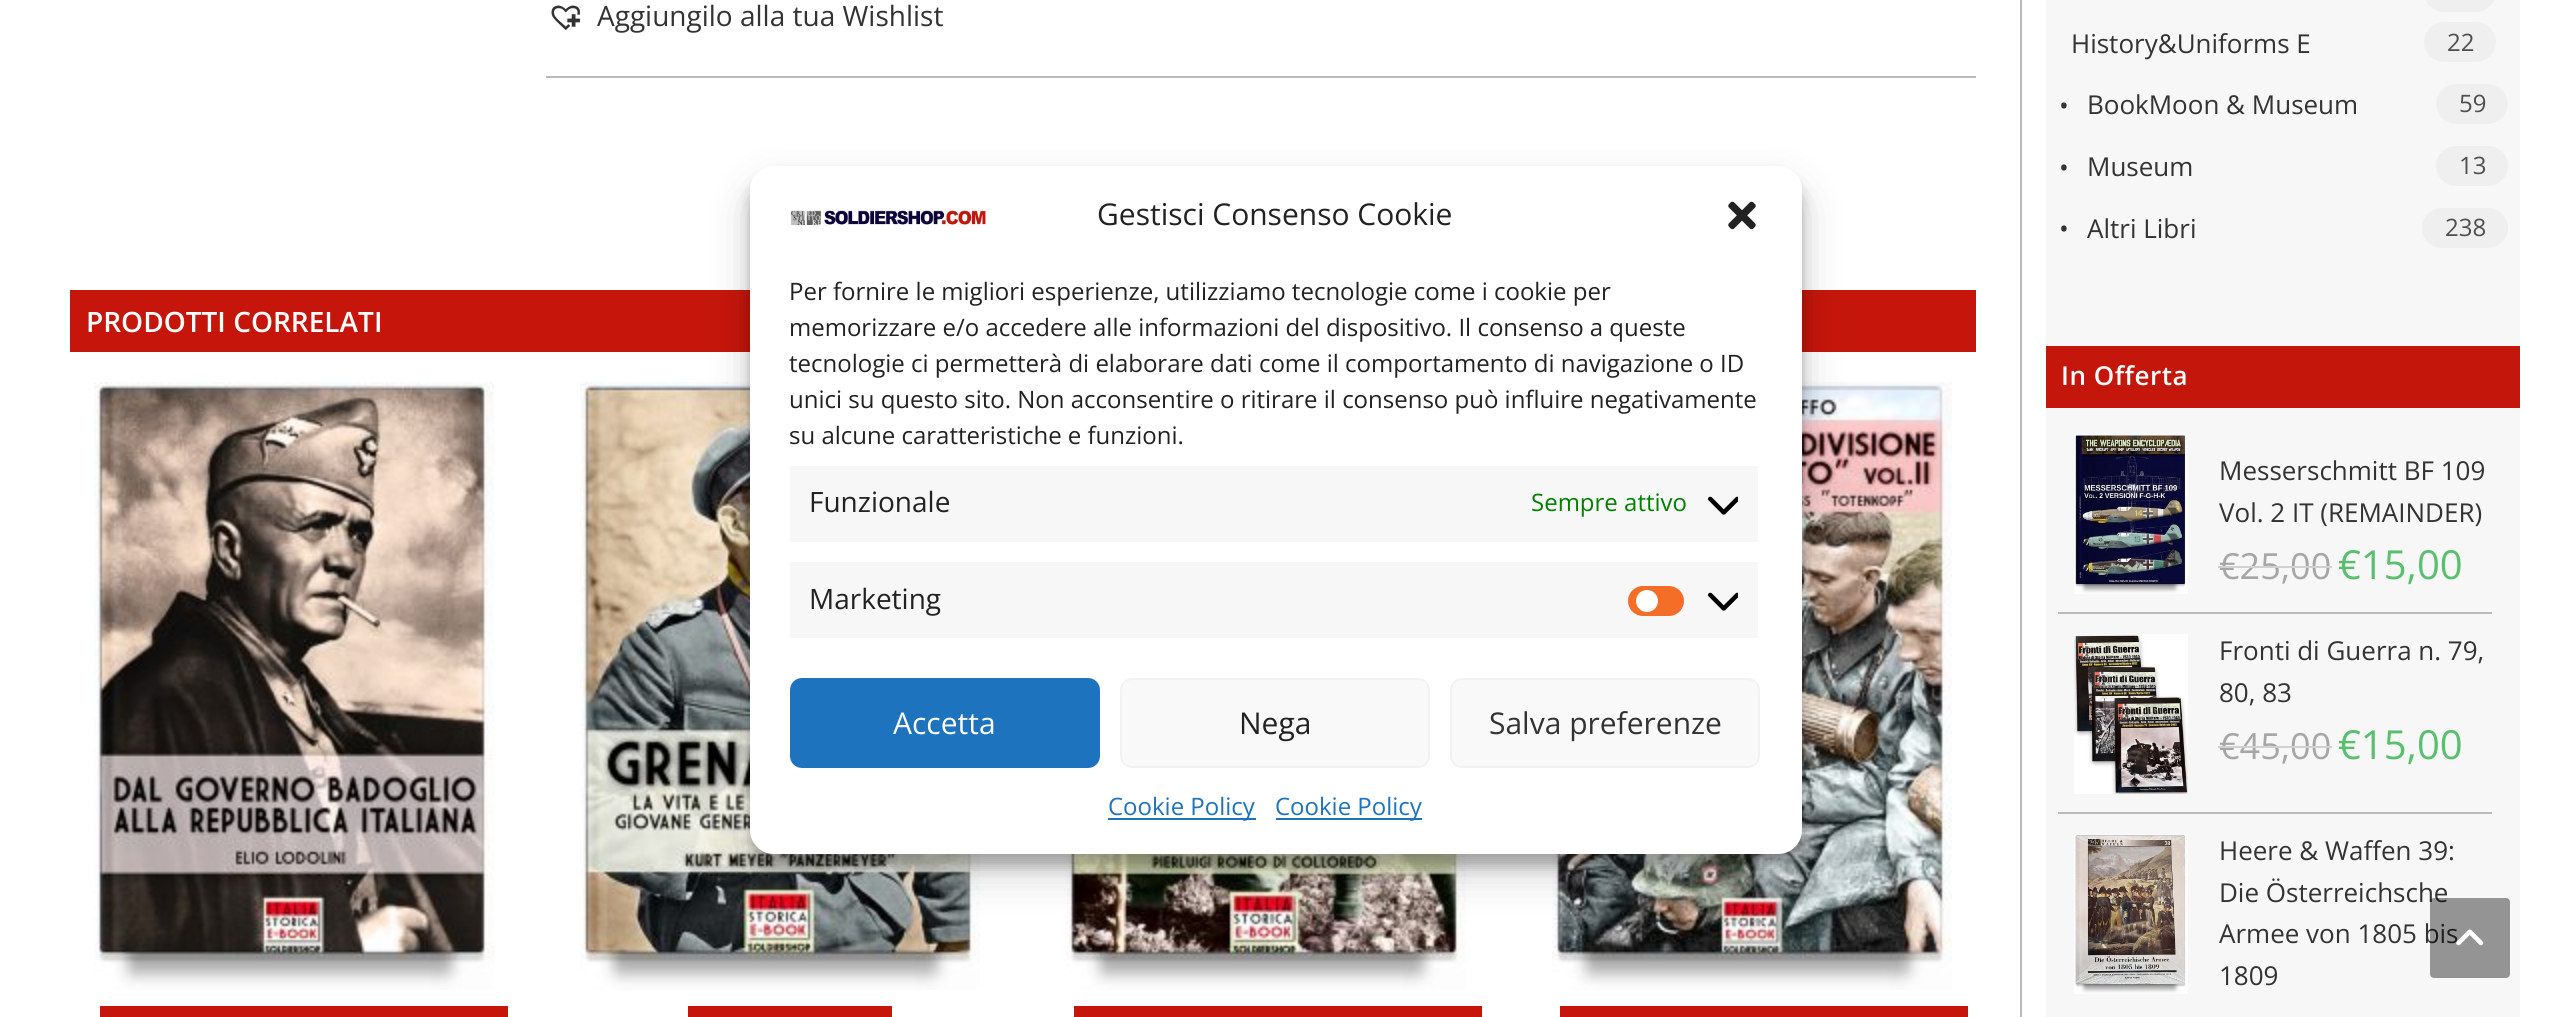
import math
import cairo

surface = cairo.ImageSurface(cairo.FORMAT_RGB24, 2550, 1017)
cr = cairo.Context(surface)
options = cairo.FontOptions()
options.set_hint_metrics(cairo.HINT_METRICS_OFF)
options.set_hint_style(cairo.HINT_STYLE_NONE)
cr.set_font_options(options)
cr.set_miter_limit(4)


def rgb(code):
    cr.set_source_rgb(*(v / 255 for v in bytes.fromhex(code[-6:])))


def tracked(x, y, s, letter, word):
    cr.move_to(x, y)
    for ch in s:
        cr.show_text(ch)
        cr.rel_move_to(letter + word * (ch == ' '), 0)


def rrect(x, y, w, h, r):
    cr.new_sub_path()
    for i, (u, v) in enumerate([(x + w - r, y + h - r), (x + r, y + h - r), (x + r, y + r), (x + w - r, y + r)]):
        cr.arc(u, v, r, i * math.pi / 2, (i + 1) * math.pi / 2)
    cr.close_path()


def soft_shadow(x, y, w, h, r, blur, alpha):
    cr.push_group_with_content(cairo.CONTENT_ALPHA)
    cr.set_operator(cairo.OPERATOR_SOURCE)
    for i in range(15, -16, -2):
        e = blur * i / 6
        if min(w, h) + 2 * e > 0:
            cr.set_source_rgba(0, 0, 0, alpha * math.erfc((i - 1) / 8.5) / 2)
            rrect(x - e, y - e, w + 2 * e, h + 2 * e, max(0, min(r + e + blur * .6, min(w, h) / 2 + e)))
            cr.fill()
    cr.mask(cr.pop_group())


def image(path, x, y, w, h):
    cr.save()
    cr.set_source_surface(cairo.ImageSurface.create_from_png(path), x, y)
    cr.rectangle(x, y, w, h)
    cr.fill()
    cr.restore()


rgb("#ffffff")
cr.paint()
rgb("#bababa")
cr.rectangle(2020, 0, 2, 1017)
cr.fill()
cr.rectangle(546, 76, 1430, 2)
cr.fill()
image("img/1.png", 551, 5, 29, 25)
rgb("#c6160b")
cr.rectangle(70, 290, 1906, 62)
cr.fill()
image("img/2.png", 94, 382, 400, 608)
cr.rectangle(100, 1006, 408, 11)
cr.fill()
image("img/3.png", 580, 382, 400, 608)
cr.rectangle(688, 1006, 204, 11)
cr.fill()
image("img/4.png", 1066, 854, 400, 136)
cr.rectangle(1074, 1006, 408, 11)
cr.fill()
image("img/5.png", 1552, 382, 400, 608)
cr.rectangle(1560, 1006, 408, 11)
cr.fill()
rgb("#f7f7f7")
cr.rectangle(2046, 0, 474, 1017)
cr.fill()
rgb("#efefef")
rrect(2424, -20, 72, 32, 20)
cr.fill()
rrect(2424, 22, 72, 40, 20)
cr.fill()
rrect(2436, 84, 72, 40, 20)
cr.fill()
rrect(2436, 146, 72, 40, 20)
cr.fill()
rrect(2422, 208, 86, 40, 20)
cr.fill()
rgb("#c5160b")
cr.rectangle(2046, 346, 474, 62)
cr.fill()
rgb("#bababa")
cr.rectangle(2058, 612, 434, 2)
cr.fill()
image("img/6.png", 2074, 434, 114, 160)
cr.rectangle(2058, 812, 434, 2)
cr.fill()
image("img/7.png", 2074, 634, 114, 160)
image("img/8.png", 2074, 834, 114, 160)
rgb("#000000")
soft_shadow(750, 178, 1052, 688, 24, 6, 0.23)
soft_shadow(750, 186, 1052, 688, 24, 20, 0.19)
rgb("#ffffff")
rrect(750, 166, 1052, 688, 24)
cr.fill()
image("img/9.png", 790, 209, 198, 16)
image("img/10.png", 1728, 201, 28, 29)
rgb("#f7f7f7")
cr.rectangle(790, 466, 968, 76)
cr.fill()
image("img/11.png", 1708, 496, 30, 19)
cr.rectangle(790, 562, 968, 76)
cr.fill()
rgb("#f56e28")
rrect(1628, 586, 56, 30, 15)
cr.fill()
rgb("#ffffff")
cr.arc(1647, 601, 11, 0, 2 * math.pi)
cr.fill()
image("img/11.png", 1708, 592, 30, 19)
rgb("#1e73be")
rrect(791, 679, 308, 88, 11)
cr.fill_preserve()
cr.stroke()
rgb("#f9f9f9")
rrect(1121, 679, 308, 88, 11)
cr.fill_preserve()
rgb("#f2f2f2")
cr.stroke()
rgb("#f9f9f9")
rrect(1451, 679, 308, 88, 11)
cr.fill_preserve()
rgb("#f2f2f2")
cr.stroke()
rgb("#1e73be")
cr.rectangle(1108, 818, 148, 2)
cr.fill()
cr.rectangle(1276, 818, 146, 2)
cr.fill()
cr.select_font_face("Open Sans")
cr.set_font_size(28)
rgb("#333333")
cr.move_to(597, 26)
cr.show_text("Aggiungilo alla tua Wishlist")
cr.select_font_face("Open Sans SemiBold")
rgb("#ffffff")
cr.move_to(86, 332)
cr.show_text("PRODOTTI CORRELATI")
cr.select_font_face("Open Sans")
cr.set_font_size(26)
rgb("#333333")
cr.move_to(2071, 53)
cr.show_text("History&Uniforms E")
cr.set_font_size(24)
rgb("#4f4f4f")
cr.move_to(2447, 51)
cr.show_text("22")
cr.set_font_size(26)
rgb("#333333")
cr.move_to(2059, 115)
cr.show_text("•")
cr.move_to(2087, 114)
cr.show_text("BookMoon & Museum")
cr.set_font_size(24)
rgb("#4f4f4f")
cr.move_to(2459, 112)
cr.show_text("59")
cr.set_font_size(26)
rgb("#333333")
cr.move_to(2059, 177)
cr.show_text("•")
cr.move_to(2087, 176)
cr.show_text("Museum")
cr.set_font_size(24)
rgb("#4f4f4f")
cr.move_to(2459, 174)
cr.show_text("13")
cr.set_font_size(26)
rgb("#333333")
cr.move_to(2059, 238)
cr.show_text("•")
cr.move_to(2087, 238)
cr.show_text("Altri Libri")
cr.set_font_size(24)
rgb("#4f4f4f")
cr.move_to(2445, 236)
cr.show_text("238")
cr.select_font_face("Open Sans SemiBold")
cr.set_font_size(26)
rgb("#ffffff")
tracked(2061, 385, "In Offerta", 0.5, 0)
cr.select_font_face("Open Sans")
rgb("#333333")
cr.move_to(2219, 480)
cr.show_text("Messerschmitt BF 109")
cr.move_to(2219, 522)
cr.show_text("Vol. 2 IT (REMAINDER)")
cr.set_font_size(36)
rgb("#a6a6a6")
cr.move_to(2219, 579)
cr.show_text("€25,00")
rgb("#d1d1d1")
cr.rectangle(2218, 566, 114, 2)
cr.fill()
cr.set_font_size(40)
rgb("#57bf6d")
cr.move_to(2338, 579)
cr.show_text("€15,00")
cr.set_font_size(26)
rgb("#333333")
cr.move_to(2219, 660)
cr.show_text("Fronti di Guerra n. 79,")
cr.move_to(2219, 702)
cr.show_text("80, 83")
cr.set_font_size(36)
rgb("#a6a6a6")
cr.move_to(2219, 759)
cr.show_text("€45,00")
rgb("#d1d1d1")
cr.rectangle(2218, 746, 114, 2)
cr.fill()
cr.set_font_size(40)
rgb("#57bf6d")
cr.move_to(2338, 759)
cr.show_text("€15,00")
cr.set_font_size(26)
rgb("#333333")
for x, y, s in [
    (2219, 860, "Heere & Waffen 39:"),
    (2219, 902, "Die Österreichsche"),
    (2219, 943, "Armee von 1805 bis"),
    (2219, 985, "1809"),
]:
    cr.move_to(x, y)
    cr.show_text(s)
cr.set_font_size(30)
rgb("#222222")
cr.move_to(1097, 225)
cr.show_text("Gestisci Consenso Cookie")
cr.set_font_size(24)
for x, y, s in [
    (789, 300, "Per fornire le migliori esperienze, utilizziamo tecnologie come i cookie per"),
    (789, 336, "memorizzare e/o accedere alle informazioni del dispositivo. Il consenso a queste"),
    (789, 372, "tecnologie ci permetterà di elaborare dati come il comportamento di navigazione o ID"),
    (789, 408, "unici su questo sito. Non acconsentire o ritirare il consenso può influire negativamente"),
    (789, 444, "su alcune caratteristiche e funzioni."),
]:
    cr.move_to(x, y)
    cr.show_text(s)
cr.set_font_size(28)
cr.move_to(809, 512)
cr.show_text("Funzionale")
cr.set_font_size(24)
rgb("#008000")
cr.move_to(1531, 511)
cr.show_text("Sempre attivo")
cr.set_font_size(28)
rgb("#222222")
cr.move_to(809, 609)
cr.show_text("Marketing")
cr.set_font_size(30)
rgb("#ffffff")
cr.move_to(893, 734)
cr.show_text("Accetta")
rgb("#222222")
cr.move_to(1239, 734)
cr.show_text("Nega")
rgb("#333333")
cr.move_to(1489, 734)
cr.show_text("Salva preferenze")
cr.set_font_size(24)
rgb("#1e73be")
cr.move_to(1108, 815)
cr.show_text("Cookie Policy")
cr.move_to(1275, 815)
cr.show_text("Cookie Policy")
cr.set_source_rgba(0, 0, 0, 0.4)
rrect(2430, 898, 80, 80, 4)
cr.fill()
image("img/12.png", 2456, 929, 28, 17)
surface.write_to_png("page.png")
